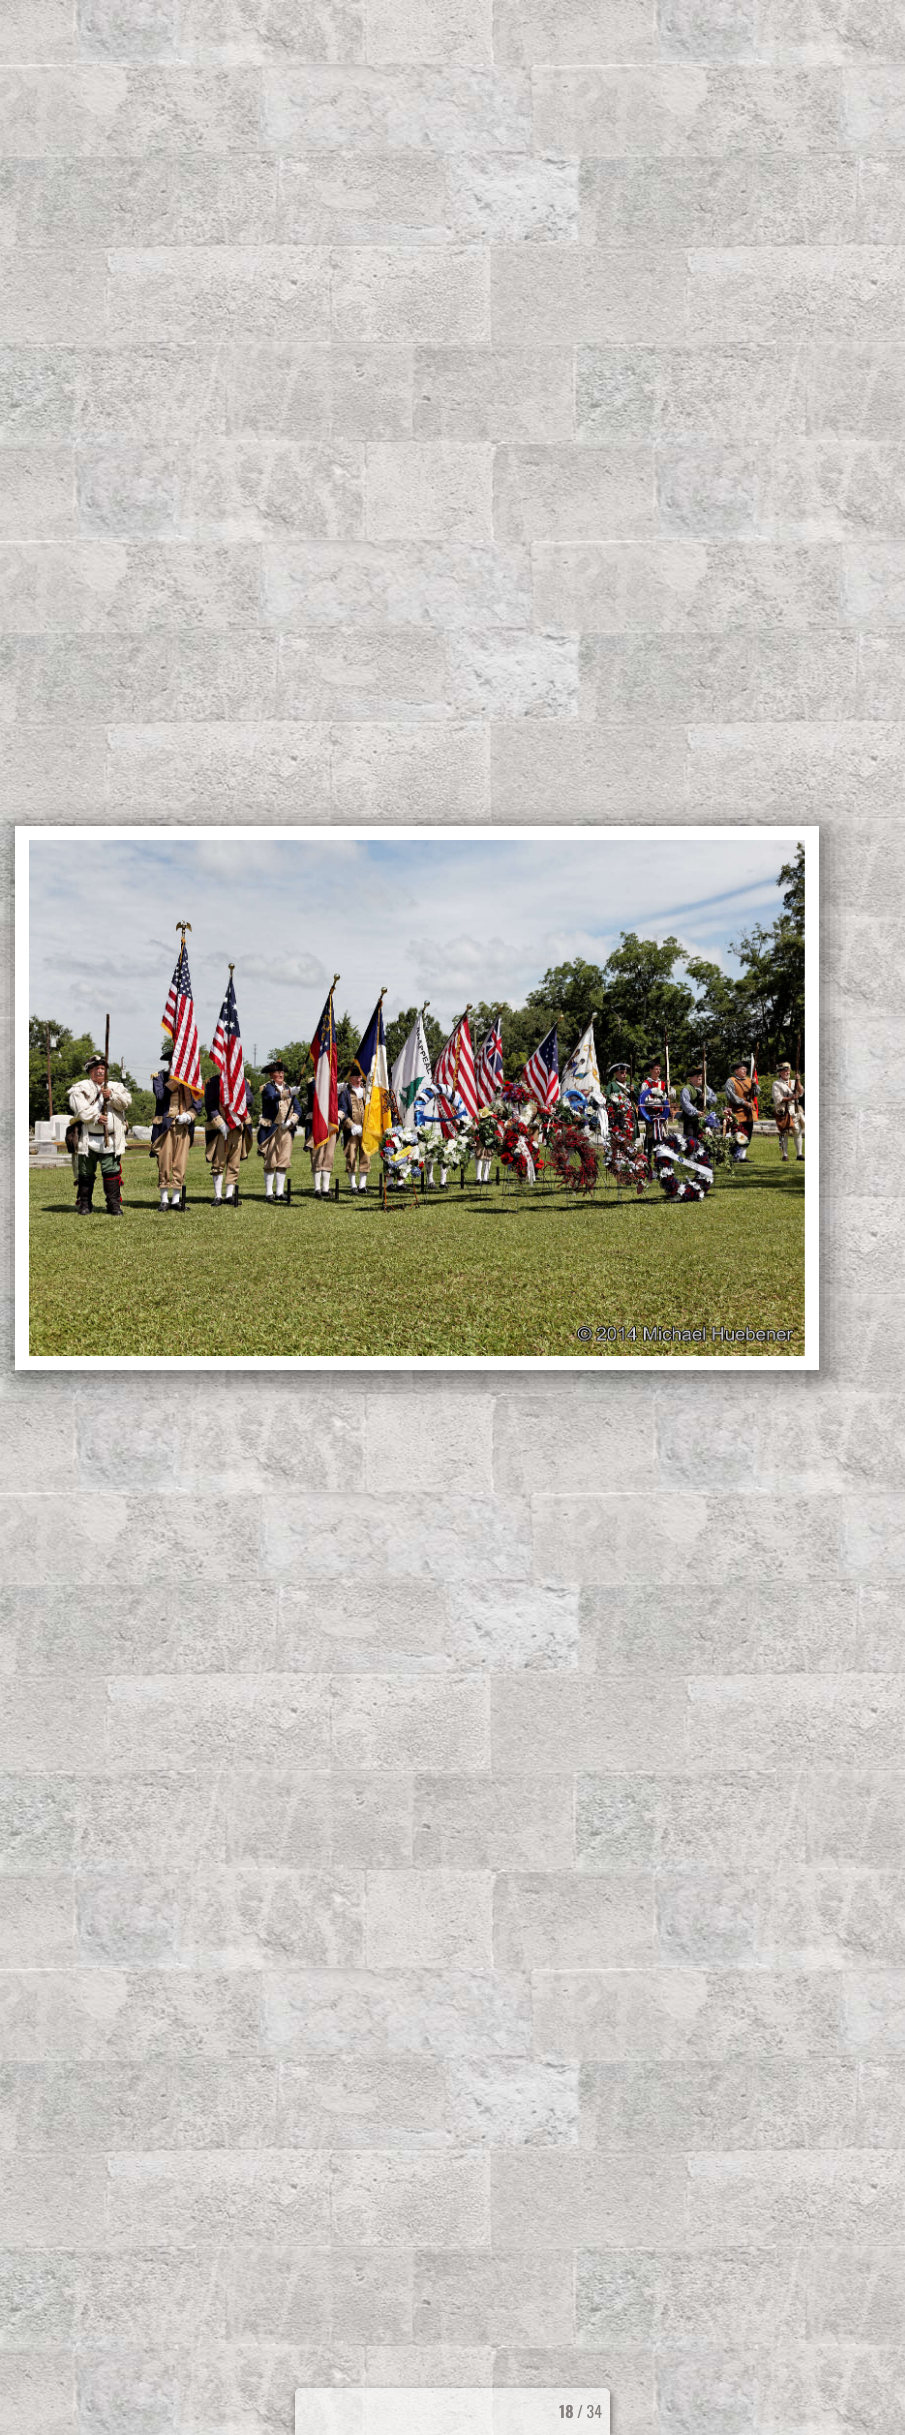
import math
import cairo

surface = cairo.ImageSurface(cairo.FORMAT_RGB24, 905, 2435)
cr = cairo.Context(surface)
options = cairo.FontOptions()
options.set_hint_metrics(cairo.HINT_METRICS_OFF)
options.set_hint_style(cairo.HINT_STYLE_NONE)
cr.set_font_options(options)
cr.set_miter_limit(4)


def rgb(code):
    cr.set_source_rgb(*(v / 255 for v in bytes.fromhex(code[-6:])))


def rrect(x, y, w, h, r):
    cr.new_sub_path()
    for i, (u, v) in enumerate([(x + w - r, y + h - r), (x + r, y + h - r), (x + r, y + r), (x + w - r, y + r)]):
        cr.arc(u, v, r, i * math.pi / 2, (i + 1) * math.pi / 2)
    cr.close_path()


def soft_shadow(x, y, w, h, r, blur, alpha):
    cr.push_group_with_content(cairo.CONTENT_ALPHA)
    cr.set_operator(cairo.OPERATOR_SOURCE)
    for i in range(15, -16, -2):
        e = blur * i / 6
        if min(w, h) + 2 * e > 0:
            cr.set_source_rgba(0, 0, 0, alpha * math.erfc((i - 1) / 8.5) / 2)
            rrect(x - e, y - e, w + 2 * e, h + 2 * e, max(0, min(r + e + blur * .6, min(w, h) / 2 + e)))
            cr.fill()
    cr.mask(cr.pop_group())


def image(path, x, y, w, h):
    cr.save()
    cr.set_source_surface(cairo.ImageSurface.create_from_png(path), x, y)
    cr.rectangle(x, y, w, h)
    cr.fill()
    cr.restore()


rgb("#ffffff")
cr.paint()
image("img/1.png", 0, 0, 905, 2435)
rgb("#000000")
soft_shadow(18, 832, 804, 544, 0, 16, 0.6)
rgb("#ffffff")
cr.rectangle(15, 826, 804, 544)
cr.fill()
image("img/2.png", 29, 840, 776, 517)
cr.save()
cr.set_fill_rule(cairo.FILL_RULE_EVEN_ODD)
cr.new_path()
cr.move_to(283, 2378)
cr.line_to(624, 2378)
cr.line_to(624, 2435)
cr.line_to(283, 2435)
cr.close_path()
cr.move_to(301, 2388)
cr.line_to(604, 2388)
cr.curve_to(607.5, 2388, 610, 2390.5, 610, 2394)
cr.line_to(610, 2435)
cr.line_to(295, 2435)
cr.line_to(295, 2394)
cr.curve_to(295, 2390.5, 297.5, 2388, 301, 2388)
cr.close_path()
cr.clip()
rgb("#000000")
soft_shadow(296, 2391, 315, 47, 6, 4, 0.6)
cr.restore()
cr.set_source_rgba(1, 1, 1, 0.6)
cr.new_path()
cr.move_to(301, 2388)
cr.line_to(604, 2388)
cr.curve_to(607.5, 2388, 610, 2390.5, 610, 2394)
cr.line_to(610, 2435)
cr.line_to(295, 2435)
cr.line_to(295, 2394)
cr.curve_to(295, 2390.5, 297.5, 2388, 301, 2388)
cr.close_path()
cr.fill()
cr.select_font_face("Oswald", cairo.FONT_SLANT_NORMAL, cairo.FONT_WEIGHT_BOLD)
cr.set_font_size(16)
rgb("#847f7c")
cr.move_to(559, 2418)
cr.show_text("18")
cr.select_font_face("Oswald")
cr.move_to(577, 2418)
cr.show_text("/ 34")
surface.write_to_png("page.png")
